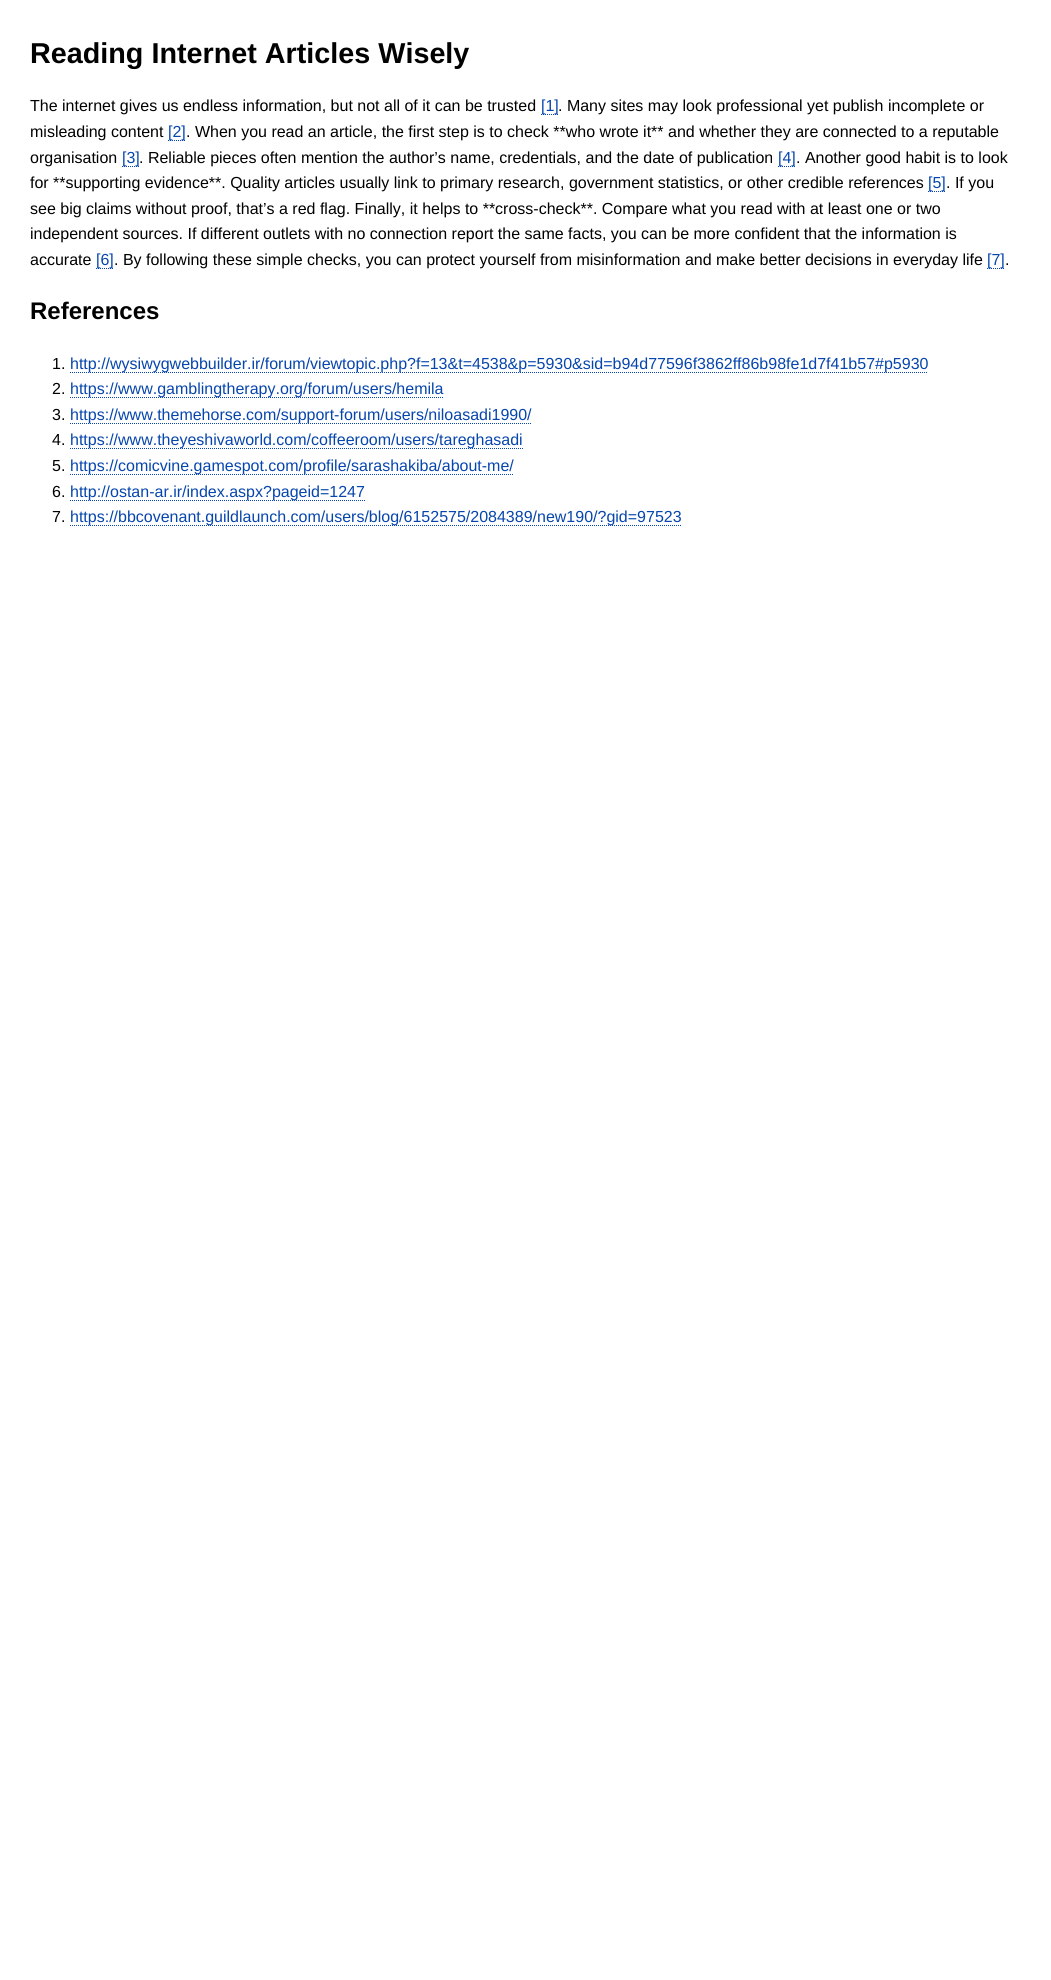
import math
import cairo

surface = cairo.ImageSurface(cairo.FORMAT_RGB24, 1051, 1980)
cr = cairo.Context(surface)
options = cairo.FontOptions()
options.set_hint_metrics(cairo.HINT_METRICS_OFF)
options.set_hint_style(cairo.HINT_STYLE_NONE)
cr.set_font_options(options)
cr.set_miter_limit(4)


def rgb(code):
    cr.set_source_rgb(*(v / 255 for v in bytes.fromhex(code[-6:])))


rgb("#ffffff")
cr.paint()
cr.new_path()
cr.move_to(541, 114.5)
cr.line_to(558, 114.5)
rgb("#0645ad")
cr.set_line_width(1)
cr.set_dash([1, 1])
cr.stroke()
cr.new_path()
cr.move_to(168, 140.5)
cr.line_to(186, 140.5)
cr.stroke()
cr.new_path()
cr.move_to(122, 166.5)
cr.line_to(139, 166.5)
cr.stroke()
cr.new_path()
cr.move_to(778, 166.5)
cr.line_to(796, 166.5)
cr.stroke()
cr.new_path()
cr.move_to(928, 191.5)
cr.line_to(946, 191.5)
cr.stroke()
cr.new_path()
cr.move_to(96, 268.5)
cr.line_to(114, 268.5)
cr.stroke()
cr.new_path()
cr.move_to(987, 268.5)
cr.line_to(1005, 268.5)
cr.stroke()
cr.new_path()
cr.move_to(70, 372.5)
cr.line_to(928, 372.5)
cr.stroke()
cr.new_path()
cr.move_to(70, 397.5)
cr.line_to(444, 397.5)
cr.stroke()
cr.new_path()
cr.move_to(70, 423.5)
cr.line_to(532, 423.5)
cr.stroke()
cr.new_path()
cr.move_to(70, 448.5)
cr.line_to(523, 448.5)
cr.stroke()
cr.new_path()
cr.move_to(70, 474.5)
cr.line_to(514, 474.5)
cr.stroke()
cr.new_path()
cr.move_to(70, 500.5)
cr.line_to(365, 500.5)
cr.stroke()
cr.new_path()
cr.move_to(70, 525.5)
cr.line_to(682, 525.5)
cr.stroke()
cr.select_font_face("Liberation Sans", cairo.FONT_SLANT_NORMAL, cairo.FONT_WEIGHT_BOLD)
cr.set_font_size(28.75)
rgb("#000000")
cr.move_to(30, 63)
cr.show_text("Reading Internet Articles Wisely")
cr.select_font_face("Liberation Sans")
cr.set_font_size(16)
cr.move_to(30, 111)
cr.show_text("The internet gives us endless information, but not all of it can be trusted")
rgb("#0645ad")
cr.move_to(541, 111)
cr.show_text("[1]")
rgb("#000000")
cr.move_to(558, 111)
cr.show_text(". Many sites may look professional yet publish incomplete or")
cr.move_to(30, 137)
cr.show_text("misleading content")
rgb("#0645ad")
cr.move_to(168, 137)
cr.show_text("[2]")
rgb("#000000")
cr.move_to(186, 137)
cr.show_text(". When you read an article, the first step is to check **who wrote it** and whether they are connected to a reputable")
cr.move_to(30, 163)
cr.show_text("organisation")
rgb("#0645ad")
cr.move_to(122, 163)
cr.show_text("[3]")
rgb("#000000")
cr.move_to(139, 163)
cr.show_text(". Reliable pieces often mention the author’s name, credentials, and the date of publication")
rgb("#0645ad")
cr.move_to(778, 163)
cr.show_text("[4]")
rgb("#000000")
cr.move_to(796, 163)
cr.show_text(". Another good habit is to look")
cr.move_to(30, 188)
cr.show_text("for **supporting evidence**. Quality articles usually link to primary research, government statistics, or other credible references")
rgb("#0645ad")
cr.move_to(928, 188)
cr.show_text("[5]")
rgb("#000000")
for x, y, s in [
    (946, 188, ". If you"),
    (30, 214, "see big claims without proof, that’s a red flag. Finally, it helps to **cross-check**. Compare what you read with at least one or two"),
    (30, 239, "independent sources. If different outlets with no connection report the same facts, you can be more confident that the information is"),
    (30, 265, "accurate"),
]:
    cr.move_to(x, y)
    cr.show_text(s)
rgb("#0645ad")
cr.move_to(96, 265)
cr.show_text("[6]")
rgb("#000000")
cr.move_to(114, 265)
cr.show_text(". By following these simple checks, you can protect yourself from misinformation and make better decisions in everyday life")
rgb("#0645ad")
cr.move_to(987, 265)
cr.show_text("[7]")
rgb("#000000")
cr.move_to(1005, 265)
cr.show_text(".")
cr.select_font_face("Liberation Sans", cairo.FONT_SLANT_NORMAL, cairo.FONT_WEIGHT_BOLD)
cr.set_font_size(24)
cr.move_to(30, 319)
cr.show_text("References")
cr.select_font_face("Liberation Sans")
cr.set_font_size(16)
cr.move_to(52, 369)
cr.show_text("1.")
rgb("#0645ad")
cr.move_to(70, 369)
cr.show_text("http://wysiwygwebbuilder.ir/forum/viewtopic.php?f=13&t=4538&p=5930&sid=b94d77596f3862ff86b98fe1d7f41b57#p5930")
rgb("#000000")
cr.move_to(52, 394)
cr.show_text("2.")
rgb("#0645ad")
cr.move_to(70, 394)
cr.show_text("https://www.gamblingtherapy.org/forum/users/hemila")
rgb("#000000")
cr.move_to(52, 420)
cr.show_text("3.")
rgb("#0645ad")
cr.move_to(70, 420)
cr.show_text("https://www.themehorse.com/support-forum/users/niloasadi1990/")
rgb("#000000")
cr.move_to(52, 445)
cr.show_text("4.")
rgb("#0645ad")
cr.move_to(70, 445)
cr.show_text("https://www.theyeshivaworld.com/coffeeroom/users/tareghasadi")
rgb("#000000")
cr.move_to(52, 471)
cr.show_text("5.")
rgb("#0645ad")
cr.move_to(70, 471)
cr.show_text("https://comicvine.gamespot.com/profile/sarashakiba/about-me/")
rgb("#000000")
cr.move_to(52, 497)
cr.show_text("6.")
rgb("#0645ad")
cr.move_to(70, 497)
cr.show_text("http://ostan-ar.ir/index.aspx?pageid=1247")
rgb("#000000")
cr.move_to(52, 522)
cr.show_text("7.")
rgb("#0645ad")
cr.move_to(70, 522)
cr.show_text("https://bbcovenant.guildlaunch.com/users/blog/6152575/2084389/new190/?gid=97523")
surface.write_to_png("page.png")
